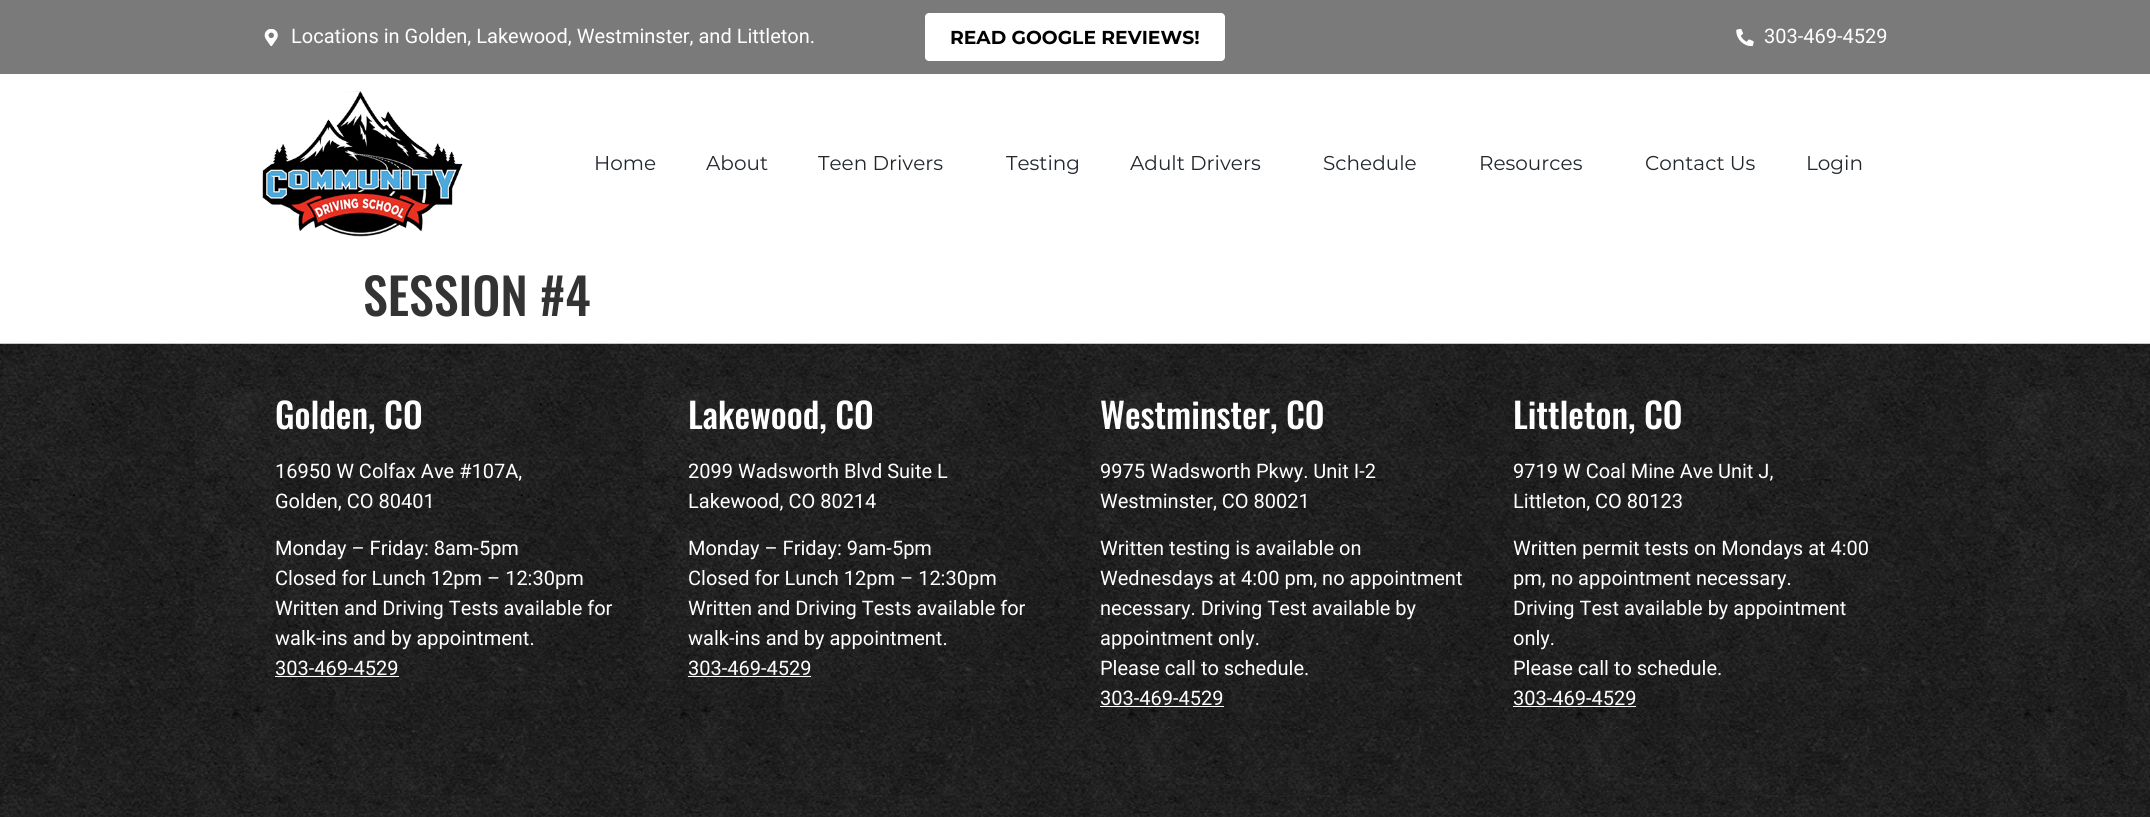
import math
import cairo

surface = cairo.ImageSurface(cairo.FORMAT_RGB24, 2150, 817)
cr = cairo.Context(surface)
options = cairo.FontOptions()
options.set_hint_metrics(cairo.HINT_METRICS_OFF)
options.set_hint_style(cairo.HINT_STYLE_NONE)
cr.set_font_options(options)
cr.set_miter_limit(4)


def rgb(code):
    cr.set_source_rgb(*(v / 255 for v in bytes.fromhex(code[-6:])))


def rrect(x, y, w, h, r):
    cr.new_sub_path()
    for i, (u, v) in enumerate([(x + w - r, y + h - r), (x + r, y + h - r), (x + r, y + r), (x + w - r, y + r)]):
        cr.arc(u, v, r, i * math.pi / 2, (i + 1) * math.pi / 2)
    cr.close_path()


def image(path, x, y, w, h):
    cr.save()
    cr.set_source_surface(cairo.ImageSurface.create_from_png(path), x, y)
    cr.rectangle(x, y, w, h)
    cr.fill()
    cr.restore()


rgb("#ffffff")
cr.paint()
rgb("#7a7a7a")
cr.rectangle(0, 0, 2150, 74)
cr.fill()
image("img/1.png", 264, 29, 14, 17)
rgb("#ffffff")
rrect(925, 13, 300, 48, 4)
cr.fill()
image("img/2.png", 1736, 29, 18, 17)
image("img/3.png", 262, 91, 201, 146)
image("img/4.png", 0, 343, 2150, 452)
for x, y, w, h, color in [
    (275, 676, 124, 1, "#ffffff"),
    (688, 676, 123, 1, "#ffffff"),
    (1100, 706, 124, 1, "#ffffff"),
    (1513, 706, 123, 1, "#ffffff"),
]:
    rgb(color)
    cr.rectangle(x, y, w, h)
    cr.fill()
image("img/5.png", 0, 795, 2150, 22)
cr.select_font_face("Roboto")
cr.set_font_size(20)
cr.move_to(291, 43)
cr.show_text("Locations in Golden, Lakewood, Westminster, and Littleton.")
cr.select_font_face("Montserrat", cairo.FONT_SLANT_NORMAL, cairo.FONT_WEIGHT_BOLD)
cr.set_font_size(18.75)
rgb("#000000")
cr.move_to(950, 44)
cr.show_text("READ GOOGLE REVIEWS!")
cr.select_font_face("Roboto")
cr.set_font_size(20)
rgb("#ffffff")
cr.move_to(1764, 43)
cr.show_text("303-469-4529")
cr.select_font_face("Montserrat")
rgb("#23282d")
for x, y, s in [
    (594, 170, "Home"),
    (706, 170, "About"),
    (818, 170, "Teen Drivers"),
    (1006, 170, "Testing"),
    (1130, 170, "Adult Drivers"),
    (1323, 170, "Schedule"),
    (1479, 170, "Resources"),
    (1645, 170, "Contact Us"),
    (1806, 170, "Login"),
]:
    cr.move_to(x, y)
    cr.show_text(s)
cr.select_font_face("Oswald Medium")
cr.set_font_size(50)
rgb("#333333")
cr.move_to(363, 316)
cr.show_text("SESSION #4")
cr.set_font_size(35)
rgb("#ffffff")
cr.move_to(275, 429)
cr.show_text("Golden, CO")
cr.select_font_face("Roboto")
cr.set_font_size(20)
for x, y, s in [
    (275, 478, "16950 W Colfax Ave #107A,"),
    (275, 508, "Golden, CO 80401"),
    (275, 555, "Monday – Friday: 8am-5pm"),
    (275, 585, "Closed for Lunch 12pm – 12:30pm"),
    (275, 615, "Written and Driving Tests available for"),
    (275, 645, "walk-ins and by appointment."),
    (275, 675, "303-469-4529"),
]:
    cr.move_to(x, y)
    cr.show_text(s)
cr.select_font_face("Oswald Medium")
cr.set_font_size(35)
cr.move_to(688, 429)
cr.show_text("Lakewood, CO")
cr.select_font_face("Roboto")
cr.set_font_size(20)
for x, y, s in [
    (688, 478, "2099 Wadsworth Blvd Suite L"),
    (688, 508, "Lakewood, CO 80214"),
    (688, 555, "Monday – Friday: 9am-5pm"),
    (688, 585, "Closed for Lunch 12pm – 12:30pm"),
    (688, 615, "Written and Driving Tests available for"),
    (688, 645, "walk-ins and by appointment."),
    (688, 675, "303-469-4529"),
]:
    cr.move_to(x, y)
    cr.show_text(s)
cr.select_font_face("Oswald Medium")
cr.set_font_size(35)
cr.move_to(1100, 429)
cr.show_text("Westminster, CO")
cr.select_font_face("Roboto")
cr.set_font_size(20)
for x, y, s in [
    (1100, 478, "9975 Wadsworth Pkwy. Unit I-2"),
    (1100, 508, "Westminster, CO 80021"),
    (1100, 555, "Written testing is available on"),
    (1100, 585, "Wednesdays at 4:00 pm, no appointment"),
    (1100, 615, "necessary. Driving Test available by"),
    (1100, 645, "appointment only."),
    (1100, 675, "Please call to schedule."),
    (1100, 705, "303-469-4529"),
]:
    cr.move_to(x, y)
    cr.show_text(s)
cr.select_font_face("Oswald Medium")
cr.set_font_size(35)
cr.move_to(1513, 429)
cr.show_text("Littleton, CO")
cr.select_font_face("Roboto")
cr.set_font_size(20)
for x, y, s in [
    (1513, 478, "9719 W Coal Mine Ave Unit J,"),
    (1513, 508, "Littleton, CO 80123"),
    (1513, 555, "Written permit tests on Mondays at 4:00"),
    (1513, 585, "pm, no appointment necessary."),
    (1513, 615, "Driving Test available by appointment"),
    (1513, 645, "only."),
    (1513, 675, "Please call to schedule."),
    (1513, 705, "303-469-4529"),
]:
    cr.move_to(x, y)
    cr.show_text(s)
surface.write_to_png("page.png")
